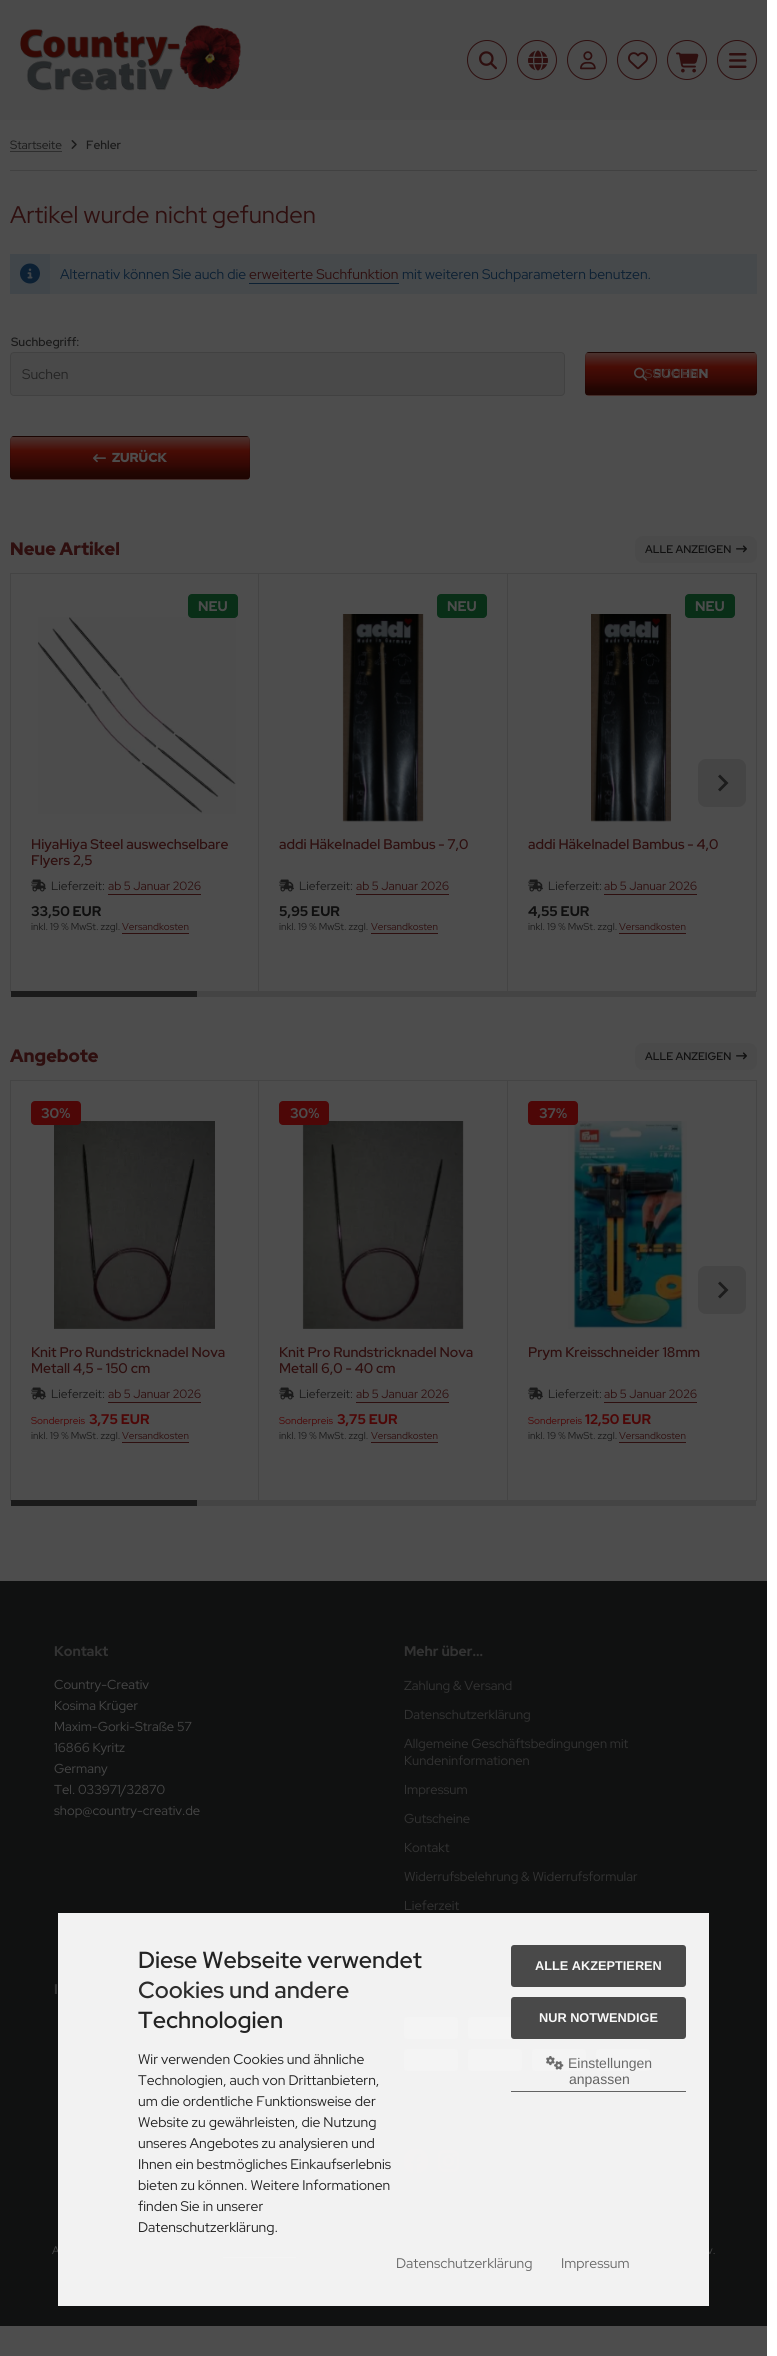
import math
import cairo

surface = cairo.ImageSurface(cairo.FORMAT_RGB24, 777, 2356)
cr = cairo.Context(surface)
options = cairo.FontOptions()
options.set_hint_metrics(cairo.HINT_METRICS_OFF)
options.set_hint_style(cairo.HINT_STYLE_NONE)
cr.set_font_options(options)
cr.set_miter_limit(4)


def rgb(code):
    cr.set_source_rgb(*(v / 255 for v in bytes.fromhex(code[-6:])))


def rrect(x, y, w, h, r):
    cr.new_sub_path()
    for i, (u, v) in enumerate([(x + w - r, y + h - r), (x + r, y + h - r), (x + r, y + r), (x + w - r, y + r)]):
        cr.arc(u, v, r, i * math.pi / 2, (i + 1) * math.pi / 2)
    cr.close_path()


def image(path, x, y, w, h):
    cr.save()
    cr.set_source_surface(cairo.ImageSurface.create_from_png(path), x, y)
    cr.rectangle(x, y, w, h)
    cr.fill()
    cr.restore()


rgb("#ffffff")
cr.paint()
rgb("#4d4d4d")
cr.rectangle(0, 120, 767, 2236)
cr.fill()
rgb("#4a4a4a")
cr.rectangle(0, 0, 767, 120)
cr.fill()
image("img/1.png", 20, 25, 221, 66)
cr.arc(487, 60, 19.5, 0, 2 * math.pi)
rgb("#2e0f0f")
cr.set_line_width(1)
cr.stroke()
image("img/2.png", 479, 51, 18, 19)
cr.arc(537, 60, 19.5, 0, 2 * math.pi)
cr.stroke()
image("img/3.png", 528, 50, 20, 21)
cr.arc(587, 60, 19.5, 0, 2 * math.pi)
cr.stroke()
image("img/4.png", 580, 51, 16, 19)
cr.arc(637, 60, 19.5, 0, 2 * math.pi)
cr.stroke()
image("img/5.png", 628, 52, 20, 18)
cr.arc(687, 60, 19.5, 0, 2 * math.pi)
cr.stroke()
image("img/6.png", 676, 52, 23, 21)
cr.arc(737, 60, 19.5, 0, 2 * math.pi)
cr.stroke()
image("img/7.png", 729, 53, 18, 15)
rgb("#414141")
cr.rectangle(10, 170, 747, 1)
cr.fill()
rgb("#2e2e2e")
cr.rectangle(10, 151, 52, 1)
cr.fill()
image("img/8.png", 71, 140, 6, 9)
rgb("#46494b")
cr.rectangle(50, 254, 707, 40)
cr.fill()
rgb("#41464a")
cr.rectangle(10, 254, 40, 40)
cr.fill()
image("img/9.png", 20, 263, 20, 21)
rgb("#0c2033")
cr.rectangle(249, 283, 150, 1)
cr.fill()
rgb("#494949")
rrect(10.5, 352.5, 554, 43, 3.5)
cr.fill_preserve()
rgb("#414141")
cr.stroke()
cr.save()
rrect(585, 352, 172, 44, 4)
cr.clip()
gradient = cairo.LinearGradient(671, 311, 671, 353)
gradient.add_color_stop_rgba(0, 0.29, 0.2, 0.188, 1)
gradient.add_color_stop_rgba(0.17, 0.286, 0.122, 0.102, 1)
gradient.add_color_stop_rgba(0.33, 0.278, 0.047, 0.02, 1)
gradient.add_color_stop_rgba(0.67, 0.2, 0.031, 0.016, 1)
gradient.add_color_stop_rgba(0.83, 0.141, 0.024, 0.008, 1)
gradient.add_color_stop_rgba(1, 0.114, 0.02, 0.008, 1)
cr.set_source(gradient)
cr.rectangle(585, 352, 172, 1)
cr.fill()
gradient = cairo.LinearGradient(671, 353, 671, 395)
gradient.add_color_stop_rgba(0, 0.29, 0.2, 0.188, 1)
gradient.add_color_stop_rgba(0.17, 0.286, 0.122, 0.102, 1)
gradient.add_color_stop_rgba(0.33, 0.278, 0.047, 0.02, 1)
gradient.add_color_stop_rgba(0.67, 0.2, 0.031, 0.016, 1)
gradient.add_color_stop_rgba(0.83, 0.141, 0.024, 0.008, 1)
gradient.add_color_stop_rgba(1, 0.114, 0.02, 0.008, 1)
cr.set_source(gradient)
cr.rectangle(585, 353, 172, 42)
cr.fill()
gradient = cairo.LinearGradient(671, 395, 671, 437)
gradient.add_color_stop_rgba(0, 0.29, 0.2, 0.188, 1)
gradient.add_color_stop_rgba(0.17, 0.286, 0.122, 0.102, 1)
gradient.add_color_stop_rgba(0.33, 0.278, 0.047, 0.02, 1)
gradient.add_color_stop_rgba(0.67, 0.2, 0.031, 0.016, 1)
gradient.add_color_stop_rgba(0.83, 0.141, 0.024, 0.008, 1)
gradient.add_color_stop_rgba(1, 0.114, 0.02, 0.008, 1)
cr.set_source(gradient)
cr.rectangle(585, 395, 172, 1)
cr.fill()
cr.restore()
rrect(585.5, 352.5, 171, 43, 3.5)
cr.set_source_rgba(0, 0, 0, 0.1)
cr.stroke()
image("img/10.png", 634, 367, 13, 14)
cr.save()
rrect(10, 436, 240, 44, 4)
cr.clip()
gradient = cairo.LinearGradient(130, 395, 130, 437)
gradient.add_color_stop_rgba(0, 0.29, 0.2, 0.188, 1)
gradient.add_color_stop_rgba(0.17, 0.286, 0.122, 0.102, 1)
gradient.add_color_stop_rgba(0.33, 0.278, 0.047, 0.02, 1)
gradient.add_color_stop_rgba(0.67, 0.2, 0.031, 0.016, 1)
gradient.add_color_stop_rgba(0.83, 0.141, 0.024, 0.008, 1)
gradient.add_color_stop_rgba(1, 0.114, 0.02, 0.008, 1)
cr.set_source(gradient)
cr.rectangle(10, 436, 240, 1)
cr.fill()
gradient = cairo.LinearGradient(130, 437, 130, 479)
gradient.add_color_stop_rgba(0, 0.29, 0.2, 0.188, 1)
gradient.add_color_stop_rgba(0.17, 0.286, 0.122, 0.102, 1)
gradient.add_color_stop_rgba(0.33, 0.278, 0.047, 0.02, 1)
gradient.add_color_stop_rgba(0.67, 0.2, 0.031, 0.016, 1)
gradient.add_color_stop_rgba(0.83, 0.141, 0.024, 0.008, 1)
gradient.add_color_stop_rgba(1, 0.114, 0.02, 0.008, 1)
cr.set_source(gradient)
cr.rectangle(10, 437, 240, 42)
cr.fill()
gradient = cairo.LinearGradient(130, 479, 130, 521)
gradient.add_color_stop_rgba(0, 0.29, 0.2, 0.188, 1)
gradient.add_color_stop_rgba(0.17, 0.286, 0.122, 0.102, 1)
gradient.add_color_stop_rgba(0.33, 0.278, 0.047, 0.02, 1)
gradient.add_color_stop_rgba(0.67, 0.2, 0.031, 0.016, 1)
gradient.add_color_stop_rgba(0.83, 0.141, 0.024, 0.008, 1)
gradient.add_color_stop_rgba(1, 0.114, 0.02, 0.008, 1)
cr.set_source(gradient)
cr.rectangle(10, 479, 240, 1)
cr.fill()
cr.restore()
rrect(10.5, 436.5, 239, 43, 3.5)
cr.stroke()
image("img/11.png", 93, 454, 13, 9)
rgb("#4a4a4a")
rrect(635, 536, 122, 27, 8)
cr.fill()
image("img/12.png", 736, 545, 11, 8)
cr.rectangle(10.5, 573.5, 746, 418)
rgb("#444444")
cr.stroke()
cr.rectangle(258, 574, 1, 417)
cr.fill()
image("img/13.png", 38, 617, 198, 197)
rgb("#092e17")
rrect(188, 594, 50, 24, 4)
cr.fill()
image("img/14.png", 31, 879, 15, 13)
for x, y, w, h, color in [
    (108, 894, 93, 1, "#2e0f0f"),
    (122, 933, 67, 1, "#2e0f0f"),
    (507, 574, 1, 417, "#444444"),
]:
    rgb(color)
    cr.rectangle(x, y, w, h)
    cr.fill()
rgb("#092e17")
rrect(437, 594, 50, 24, 4)
cr.fill()
image("img/15.png", 342, 614, 82, 208)
image("img/14.png", 279, 879, 15, 13)
rgb("#2e0f0f")
cr.rectangle(356, 894, 93, 1)
cr.fill()
cr.rectangle(371, 933, 67, 1)
cr.fill()
rgb("#092e17")
rrect(685, 594, 50, 24, 4)
cr.fill()
image("img/16.png", 591, 614, 80, 208)
image("img/14.png", 528, 879, 15, 13)
rgb("#2e0f0f")
cr.rectangle(604, 894, 93, 1)
cr.fill()
cr.rectangle(619, 933, 67, 1)
cr.fill()
rgb("#454545")
rrect(698, 759, 48, 48, 8)
cr.fill()
rgb("#1c1c1c")
cr.new_path()
cr.move_to(720, 774.5)
cr.line_to(718, 776.5)
cr.line_to(724.5, 783)
cr.line_to(718, 789.5)
cr.line_to(720, 791.5)
cr.line_to(728.5, 783)
cr.close_path()
cr.fill()
rgb("#1a1a1a")
cr.rectangle(11, 991, 186, 6)
cr.fill()
rgb("#444444")
cr.rectangle(197, 992, 559, 5)
cr.fill()
rgb("#4a4a4a")
rrect(635, 1043, 122, 27, 8)
cr.fill()
image("img/12.png", 736, 1052, 11, 8)
cr.rectangle(10.5, 1080.5, 746, 420)
rgb("#444444")
cr.stroke()
cr.rectangle(258, 1081, 1, 419)
cr.fill()
image("img/17.png", 54, 1121, 161, 208)
rgb("#4d0707")
rrect(31, 1101, 50, 24, 4)
cr.fill()
image("img/14.png", 31, 1387, 15, 13)
for x, y, w, h, color in [
    (108, 1402, 93, 1, "#2e0f0f"),
    (122, 1442, 67, 1, "#2e0f0f"),
    (507, 1081, 1, 419, "#444444"),
]:
    rgb(color)
    cr.rectangle(x, y, w, h)
    cr.fill()
image("img/18.png", 302, 1121, 162, 208)
rgb("#4d0707")
rrect(279, 1101, 50, 24, 4)
cr.fill()
image("img/14.png", 279, 1387, 15, 13)
rgb("#2e0f0f")
cr.rectangle(356, 1402, 93, 1)
cr.fill()
cr.rectangle(371, 1442, 67, 1)
cr.fill()
image("img/19.png", 568, 1121, 119, 208)
rgb("#4d0707")
rrect(528, 1101, 50, 24, 4)
cr.fill()
image("img/14.png", 528, 1387, 15, 13)
rgb("#2e0f0f")
cr.rectangle(604, 1402, 93, 1)
cr.fill()
cr.rectangle(619, 1442, 67, 1)
cr.fill()
rgb("#454545")
rrect(698, 1266, 48, 48, 8)
cr.fill()
rgb("#1c1c1c")
cr.new_path()
cr.move_to(720, 1281.5)
cr.line_to(718, 1283.5)
cr.line_to(724.5, 1290)
cr.line_to(718, 1296.5)
cr.line_to(720, 1298.5)
cr.line_to(728.5, 1290)
cr.close_path()
cr.fill()
for x, y, w, h, color in [
    (11, 1500, 186, 6, "#1a1a1a"),
    (197, 1501, 559, 5, "#444444"),
    (0, 1581, 767, 745, "#101111"),
]:
    rgb(color)
    cr.rectangle(x, y, w, h)
    cr.fill()
rgb("#414141")
rrect(404, 2017, 54, 22, 4)
cr.fill()
rrect(468, 2017, 54, 22, 4)
cr.fill()
rrect(404, 2049, 54, 22, 4)
cr.fill()
rrect(468, 2049, 54, 22, 4)
cr.fill()
rrect(532, 2049, 54, 22, 4)
cr.fill()
rrect(596, 2049, 54, 22, 4)
cr.fill()
image("img/20.png", 404, 2149, 24, 24)
image("img/21.png", 438, 2150, 21, 22)
rgb("#424242")
cr.rectangle(223, 2257, 73, 1)
cr.fill()
cr.select_font_face("Red Hat Display")
cr.set_font_size(12)
rgb("#1a1a1a")
cr.move_to(10, 149)
cr.show_text("Startseite")
cr.select_font_face("Red Hat Display SemiBold")
cr.move_to(86, 149)
cr.show_text("Fehler")
cr.select_font_face("Red Hat Display")
cr.set_font_size(24)
rgb("#2e0f0f")
cr.move_to(10, 223)
cr.show_text("Artikel wurde nicht gefunden")
cr.set_font_size(14)
rgb("#0c2033")
cr.move_to(60, 279)
cr.show_text("Alternativ können Sie auch die")
rgb("#2e0f0f")
cr.move_to(249, 279)
cr.show_text("erweiterte Suchfunktion")
rgb("#0c2033")
cr.move_to(402, 279)
cr.show_text("mit weiteren Suchparametern benutzen.")
cr.select_font_face("Red Hat Display SemiBold")
cr.set_font_size(12)
rgb("#1a1a1a")
cr.move_to(11, 346)
cr.show_text("Suchbegriff:")
cr.select_font_face("Red Hat Display")
cr.set_font_size(14)
rgb("#232323")
cr.move_to(22, 379)
cr.show_text("Suchen")
cr.select_font_face("Red Hat Display Black")
cr.set_font_size(13)
rgb("#4d4d4d")
cr.move_to(653, 378)
cr.show_text("SUCHEN")
cr.select_font_face("Liberation Sans")
rgb("#452b28")
cr.move_to(644, 378)
cr.show_text("SUCHEN")
cr.select_font_face("Red Hat Display Black")
rgb("#4d4d4d")
cr.move_to(112, 462)
cr.show_text("ZURÜCK")
cr.set_font_size(18)
rgb("#2e0f0f")
cr.move_to(10, 555)
cr.show_text("Neue Artikel")
cr.select_font_face("Red Hat Display SemiBold")
cr.set_font_size(11)
rgb("#0f0f0f")
cr.move_to(645, 553)
cr.show_text("ALLE ANZEIGEN")
cr.select_font_face("Red Hat Display", cairo.FONT_SLANT_NORMAL, cairo.FONT_WEIGHT_BOLD)
cr.set_font_size(14)
rgb("#4d4d4d")
cr.move_to(198, 611)
cr.show_text("NEU")
cr.select_font_face("Red Hat Display SemiBold")
rgb("#2e0f0f")
cr.move_to(31, 849)
cr.show_text("HiyaHiya Steel auswechselbare")
cr.move_to(31, 865)
cr.show_text("Flyers 2,5")
cr.select_font_face("Red Hat Display")
cr.set_font_size(12)
rgb("#1a1a1a")
cr.move_to(51, 890)
cr.show_text("Lieferzeit:")
rgb("#2e0f0f")
cr.move_to(108, 890)
cr.show_text("ab 5 Januar 2026")
cr.select_font_face("Red Hat Display", cairo.FONT_SLANT_NORMAL, cairo.FONT_WEIGHT_BOLD)
cr.set_font_size(14)
rgb("#0f0f0f")
cr.move_to(31, 916)
cr.show_text("33,50 EUR")
cr.select_font_face("Red Hat Display")
cr.set_font_size(10)
rgb("#1a1a1a")
cr.move_to(31, 930)
cr.show_text("inkl. 19 % MwSt. zzgl.")
rgb("#2e0f0f")
cr.move_to(122, 930)
cr.show_text("Versandkosten")
cr.select_font_face("Red Hat Display", cairo.FONT_SLANT_NORMAL, cairo.FONT_WEIGHT_BOLD)
cr.set_font_size(14)
rgb("#4d4d4d")
cr.move_to(447, 611)
cr.show_text("NEU")
cr.select_font_face("Red Hat Display SemiBold")
rgb("#2e0f0f")
cr.move_to(279, 849)
cr.show_text("addi Häkelnadel Bambus - 7,0")
cr.select_font_face("Red Hat Display")
cr.set_font_size(12)
rgb("#1a1a1a")
cr.move_to(299, 890)
cr.show_text("Lieferzeit:")
rgb("#2e0f0f")
cr.move_to(356, 890)
cr.show_text("ab 5 Januar 2026")
cr.select_font_face("Red Hat Display", cairo.FONT_SLANT_NORMAL, cairo.FONT_WEIGHT_BOLD)
cr.set_font_size(14)
rgb("#0f0f0f")
cr.move_to(279, 916)
cr.show_text("5,95 EUR")
cr.select_font_face("Red Hat Display")
cr.set_font_size(10)
rgb("#1a1a1a")
cr.move_to(279, 930)
cr.show_text("inkl. 19 % MwSt. zzgl.")
rgb("#2e0f0f")
cr.move_to(371, 930)
cr.show_text("Versandkosten")
cr.select_font_face("Red Hat Display", cairo.FONT_SLANT_NORMAL, cairo.FONT_WEIGHT_BOLD)
cr.set_font_size(14)
rgb("#4d4d4d")
cr.move_to(695, 611)
cr.show_text("NEU")
cr.select_font_face("Red Hat Display SemiBold")
rgb("#2e0f0f")
cr.move_to(528, 849)
cr.show_text("addi Häkelnadel Bambus - 4,0")
cr.select_font_face("Red Hat Display")
cr.set_font_size(12)
rgb("#1a1a1a")
cr.move_to(548, 890)
cr.show_text("Lieferzeit:")
rgb("#2e0f0f")
cr.move_to(604, 890)
cr.show_text("ab 5 Januar 2026")
cr.select_font_face("Red Hat Display", cairo.FONT_SLANT_NORMAL, cairo.FONT_WEIGHT_BOLD)
cr.set_font_size(14)
rgb("#0f0f0f")
cr.move_to(528, 916)
cr.show_text("4,55 EUR")
cr.select_font_face("Red Hat Display")
cr.set_font_size(10)
rgb("#1a1a1a")
cr.move_to(528, 930)
cr.show_text("inkl. 19 % MwSt. zzgl.")
rgb("#2e0f0f")
cr.move_to(619, 930)
cr.show_text("Versandkosten")
cr.select_font_face("Red Hat Display Black")
cr.set_font_size(18)
cr.move_to(10, 1062)
cr.show_text("Angebote")
cr.select_font_face("Red Hat Display SemiBold")
cr.set_font_size(11)
rgb("#0f0f0f")
cr.move_to(645, 1060)
cr.show_text("ALLE ANZEIGEN")
cr.select_font_face("Red Hat Display", cairo.FONT_SLANT_NORMAL, cairo.FONT_WEIGHT_BOLD)
cr.set_font_size(14)
rgb("#4d4d4d")
cr.move_to(41, 1118)
cr.show_text("30%")
cr.select_font_face("Red Hat Display")
cr.set_font_size(10)
rgb("#4d0707")
cr.move_to(31, 1424)
cr.show_text("Sonderpreis")
cr.select_font_face("Red Hat Display", cairo.FONT_SLANT_NORMAL, cairo.FONT_WEIGHT_BOLD)
cr.set_font_size(14)
cr.move_to(89, 1424)
cr.show_text("3,75 EUR")
cr.select_font_face("Red Hat Display SemiBold")
rgb("#2e0f0f")
cr.move_to(31, 1357)
cr.show_text("Knit Pro Rundstricknadel Nova")
cr.move_to(31, 1373)
cr.show_text("Metall 4,5 - 150 cm")
cr.select_font_face("Red Hat Display")
cr.set_font_size(12)
rgb("#1a1a1a")
cr.move_to(51, 1398)
cr.show_text("Lieferzeit:")
rgb("#2e0f0f")
cr.move_to(108, 1398)
cr.show_text("ab 5 Januar 2026")
cr.set_font_size(10)
rgb("#1a1a1a")
cr.move_to(31, 1439)
cr.show_text("inkl. 19 % MwSt. zzgl.")
rgb("#2e0f0f")
cr.move_to(122, 1439)
cr.show_text("Versandkosten")
cr.select_font_face("Red Hat Display", cairo.FONT_SLANT_NORMAL, cairo.FONT_WEIGHT_BOLD)
cr.set_font_size(14)
rgb("#4d4d4d")
cr.move_to(290, 1118)
cr.show_text("30%")
cr.select_font_face("Red Hat Display")
cr.set_font_size(10)
rgb("#4d0707")
cr.move_to(279, 1424)
cr.show_text("Sonderpreis")
cr.select_font_face("Red Hat Display", cairo.FONT_SLANT_NORMAL, cairo.FONT_WEIGHT_BOLD)
cr.set_font_size(14)
cr.move_to(337, 1424)
cr.show_text("3,75 EUR")
cr.select_font_face("Red Hat Display SemiBold")
rgb("#2e0f0f")
cr.move_to(279, 1357)
cr.show_text("Knit Pro Rundstricknadel Nova")
cr.move_to(279, 1373)
cr.show_text("Metall 6,0 - 40 cm")
cr.select_font_face("Red Hat Display")
cr.set_font_size(12)
rgb("#1a1a1a")
cr.move_to(299, 1398)
cr.show_text("Lieferzeit:")
rgb("#2e0f0f")
cr.move_to(356, 1398)
cr.show_text("ab 5 Januar 2026")
cr.set_font_size(10)
rgb("#1a1a1a")
cr.move_to(279, 1439)
cr.show_text("inkl. 19 % MwSt. zzgl.")
rgb("#2e0f0f")
cr.move_to(371, 1439)
cr.show_text("Versandkosten")
cr.select_font_face("Red Hat Display", cairo.FONT_SLANT_NORMAL, cairo.FONT_WEIGHT_BOLD)
cr.set_font_size(14)
rgb("#4d4d4d")
cr.move_to(539, 1118)
cr.show_text("37%")
cr.select_font_face("Red Hat Display")
cr.set_font_size(10)
rgb("#4d0707")
cr.move_to(528, 1424)
cr.show_text("Sonderpreis")
cr.select_font_face("Red Hat Display", cairo.FONT_SLANT_NORMAL, cairo.FONT_WEIGHT_BOLD)
cr.set_font_size(14)
cr.move_to(585, 1424)
cr.show_text("12,50 EUR")
cr.select_font_face("Red Hat Display SemiBold")
rgb("#2e0f0f")
cr.move_to(528, 1357)
cr.show_text("Prym Kreisschneider 18mm")
cr.select_font_face("Red Hat Display")
cr.set_font_size(12)
rgb("#1a1a1a")
cr.move_to(548, 1398)
cr.show_text("Lieferzeit:")
rgb("#2e0f0f")
cr.move_to(604, 1398)
cr.show_text("ab 5 Januar 2026")
cr.set_font_size(10)
rgb("#1a1a1a")
cr.move_to(528, 1439)
cr.show_text("inkl. 19 % MwSt. zzgl.")
rgb("#2e0f0f")
cr.move_to(619, 1439)
cr.show_text("Versandkosten")
cr.select_font_face("Red Hat Display", cairo.FONT_SLANT_NORMAL, cairo.FONT_WEIGHT_BOLD)
cr.set_font_size(14)
rgb("#333333")
cr.move_to(54, 1656)
cr.show_text("Kontakt")
cr.select_font_face("Red Hat Display")
cr.set_font_size(13)
rgb("#474747")
for x, y, s in [
    (54, 1689, "Country-Creativ"),
    (54, 1710, "Kosima Krüger"),
    (54, 1731, "Maxim-Gorki-Straße 57"),
    (54, 1752, "16866 Kyritz"),
    (54, 1773, "Germany"),
    (54, 1794, "Tel. 033971/32870"),
    (54, 1815, "shop@country-creativ.de"),
]:
    cr.move_to(x, y)
    cr.show_text(s)
cr.select_font_face("Red Hat Display", cairo.FONT_SLANT_NORMAL, cairo.FONT_WEIGHT_BOLD)
cr.set_font_size(14)
rgb("#333333")
cr.move_to(404, 1656)
cr.show_text("Mehr über...")
cr.select_font_face("Red Hat Display")
cr.set_font_size(13)
for x, y, s in [
    (404, 1690, "Zahlung & Versand"),
    (404, 1719, "Datenschutzerklärung"),
    (404, 1748, "Allgemeine Geschäftsbedingungen mit"),
    (404, 1765, "Kundeninformationen"),
    (404, 1794, "Impressum"),
    (404, 1823, "Gutscheine"),
    (404, 1852, "Kontakt"),
    (404, 1881, "Widerrufsbelehrung & Widerrufsformular"),
    (404, 1910, "Lieferzeit"),
]:
    cr.move_to(x, y)
    cr.show_text(s)
cr.select_font_face("Red Hat Display", cairo.FONT_SLANT_NORMAL, cairo.FONT_WEIGHT_BOLD)
cr.set_font_size(14)
cr.move_to(54, 1994)
cr.show_text("I")
cr.select_font_face("Red Hat Display")
cr.set_font_size(11)
rgb("#474747")
cr.move_to(52, 2254)
cr.show_text("A")
cr.move_to(707, 2254)
cr.show_text("v.")
cr.set_source_rgba(0.976, 0.976, 0.976, 0.97)
cr.rectangle(58, 1913, 651, 393)
cr.fill()
cr.select_font_face("Red Hat Display SemiBold")
cr.set_font_size(23.25)
rgb("#232323")
cr.move_to(138, 1968)
cr.show_text("Diese Webseite verwendet")
rgb("#2c2c2c")
cr.move_to(138, 1998)
cr.show_text("Cookies und andere")
rgb("#232323")
cr.move_to(138, 2028)
cr.show_text("Technologien")
cr.select_font_face("Red Hat Display")
cr.set_font_size(14)
for x, y, s in [
    (138, 2064, "Wir verwenden Cookies und ähnliche"),
    (138, 2085, "Technologien, auch von Drittanbietern,"),
    (138, 2106, "um die ordentliche Funktionsweise der"),
    (138, 2127, "Website zu gewährleisten, die Nutzung"),
    (138, 2148, "unseres Angebotes zu analysieren und"),
    (138, 2169, "Ihnen ein bestmögliches Einkaufserlebnis"),
    (138, 2190, "bieten zu können. Weitere Informationen"),
    (138, 2211, "finden Sie in unserer"),
    (138, 2232, "Datenschutzerklärung."),
]:
    cr.move_to(x, y)
    cr.show_text(s)
rgb("#494949")
rrect(511, 1945, 175, 42, 3)
cr.fill()
cr.select_font_face("Liberation Sans", cairo.FONT_SLANT_NORMAL, cairo.FONT_WEIGHT_BOLD)
cr.set_font_size(12.75)
rgb("#f8f8f8")
cr.move_to(535, 1970)
cr.show_text("ALLE AKZEPTIEREN")
rgb("#494949")
rrect(511, 1997, 175, 42, 3)
cr.fill()
rgb("#f8f8f8")
cr.move_to(539, 2022)
cr.show_text("NUR NOTWENDIGE")
rgb("#636363")
cr.rectangle(511, 2091, 175, 1)
cr.fill()
image("img/22.png", 546, 2056, 18, 14)
cr.select_font_face("Liberation Sans")
cr.set_font_size(14)
rgb("#6a6a6a")
cr.move_to(568, 2068)
cr.show_text("Einstellungen")
rgb("#636363")
cr.move_to(569, 2084)
cr.show_text("anpassen")
cr.select_font_face("Red Hat Display")
rgb("#6a6a6a")
cr.move_to(396, 2268)
cr.show_text("Datenschutzerklärung")
cr.move_to(561, 2268)
cr.show_text("Impressum")
surface.write_to_png("page.png")
